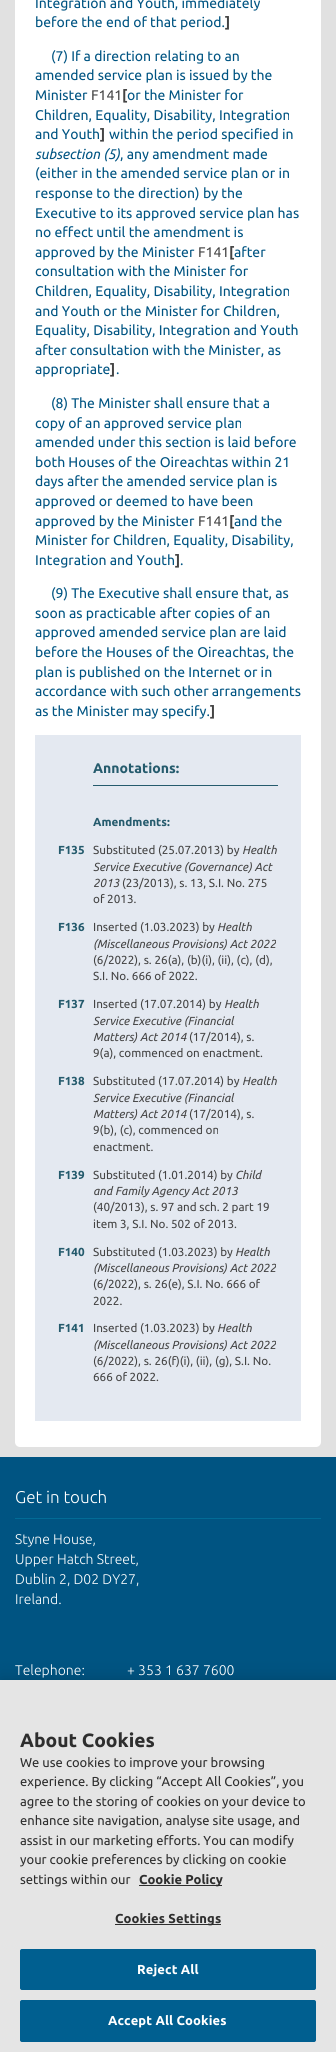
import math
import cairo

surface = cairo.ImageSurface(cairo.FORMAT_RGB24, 336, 2052)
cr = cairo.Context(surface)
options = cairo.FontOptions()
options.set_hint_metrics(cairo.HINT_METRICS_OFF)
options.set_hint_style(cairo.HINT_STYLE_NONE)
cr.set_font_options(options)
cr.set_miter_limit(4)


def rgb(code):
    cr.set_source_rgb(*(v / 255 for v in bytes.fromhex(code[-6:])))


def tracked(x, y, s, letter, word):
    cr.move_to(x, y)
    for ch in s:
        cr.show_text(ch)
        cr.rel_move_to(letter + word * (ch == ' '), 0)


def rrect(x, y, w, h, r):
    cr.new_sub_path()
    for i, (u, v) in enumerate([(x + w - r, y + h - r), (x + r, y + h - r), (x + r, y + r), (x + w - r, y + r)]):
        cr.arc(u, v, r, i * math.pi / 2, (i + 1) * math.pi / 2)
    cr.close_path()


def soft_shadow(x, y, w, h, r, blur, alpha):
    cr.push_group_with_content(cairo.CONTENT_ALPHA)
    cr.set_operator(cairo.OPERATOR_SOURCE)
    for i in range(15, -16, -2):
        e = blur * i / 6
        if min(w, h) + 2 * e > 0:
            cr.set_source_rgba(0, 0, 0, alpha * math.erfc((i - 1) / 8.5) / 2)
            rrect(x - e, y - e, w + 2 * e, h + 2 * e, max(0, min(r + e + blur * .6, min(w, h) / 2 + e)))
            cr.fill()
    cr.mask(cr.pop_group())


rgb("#005482")
cr.paint()
rgb("#e1e1e1")
cr.rectangle(0, 0, 336, 1457)
cr.fill()
rgb("#ffffff")
rrect(15, -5, 306, 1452, 5)
cr.fill()
for x, y, w, h, color in [
    (35, 735, 266, 686, "#e4e9f1"),
    (93, 785, 185, 1, "#255b6d"),
    (15, 1518, 306, 1, "#036b96"),
]:
    rgb(color)
    cr.rectangle(x, y, w, h)
    cr.fill()
rgb("#000000")
soft_shadow(0, 1680, 336, 372, 0, 9, 0.2)
for x, y, w, h, color in [
    (0, 1680, 336, 372, "#e5e5e5"),
    (139, 1885, 83, 1, "#2e2e2e"),
    (115, 1924, 106, 1, "#2e2e2e"),
]:
    rgb(color)
    cr.rectangle(x, y, w, h)
    cr.fill()
rgb("#005f90")
rrect(20.5, 1949.5, 295, 40, 1.5)
cr.fill_preserve()
cr.set_line_width(1)
cr.stroke()
rrect(20.5, 2000.5, 295, 41, 1.5)
cr.fill_preserve()
cr.stroke()
cr.select_font_face("Ubuntu")
cr.set_font_size(14)
rgb("#005482")
cr.move_to(35, 8)
cr.show_text("Integration and Youth, immediately")
cr.move_to(35, 27)
cr.show_text("before the end of that period.")
cr.select_font_face("Ubuntu", cairo.FONT_SLANT_NORMAL, cairo.FONT_WEIGHT_BOLD)
rgb("#444444")
cr.move_to(225, 27)
cr.show_text("]")
cr.select_font_face("Ubuntu")
rgb("#005482")
for x, y, s in [
    (51, 61, "(7) If a direction relating to an"),
    (35, 80, "amended service plan is issued by the"),
    (35, 100, "Minister"),
]:
    cr.move_to(x, y)
    cr.show_text(s)
rgb("#444444")
cr.move_to(91, 100)
cr.show_text("F141")
cr.select_font_face("Ubuntu", cairo.FONT_SLANT_NORMAL, cairo.FONT_WEIGHT_BOLD)
cr.move_to(122, 100)
cr.show_text("[")
cr.select_font_face("Ubuntu")
rgb("#005482")
for x, y, s in [
    (127, 100, "or the Minister for"),
    (35, 120, "Children, Equality, Disability, Integration"),
    (35, 139, "and Youth"),
]:
    cr.move_to(x, y)
    cr.show_text(s)
cr.select_font_face("Ubuntu", cairo.FONT_SLANT_NORMAL, cairo.FONT_WEIGHT_BOLD)
rgb("#444444")
cr.move_to(100, 139)
cr.show_text("]")
cr.select_font_face("Ubuntu")
rgb("#005482")
cr.move_to(109, 139)
cr.show_text("within the period specified in")
cr.select_font_face("Ubuntu", cairo.FONT_SLANT_ITALIC)
cr.move_to(35, 159)
cr.show_text("subsection (5)")
cr.select_font_face("Ubuntu")
for x, y, s in [
    (120, 159, ", any amendment made"),
    (35, 178, "(either in the amended service plan or in"),
    (35, 198, "response to the direction) by the"),
    (35, 218, "Executive to its approved service plan has"),
    (35, 237, "no effect until the amendment is"),
    (35, 257, "approved by the Minister"),
]:
    cr.move_to(x, y)
    cr.show_text(s)
rgb("#444444")
cr.move_to(198, 257)
cr.show_text("F141")
cr.select_font_face("Ubuntu", cairo.FONT_SLANT_NORMAL, cairo.FONT_WEIGHT_BOLD)
cr.move_to(229, 257)
cr.show_text("[")
cr.select_font_face("Ubuntu")
rgb("#005482")
for x, y, s in [
    (234, 257, "after"),
    (35, 276, "consultation with the Minister for"),
    (35, 296, "Children, Equality, Disability, Integration"),
    (35, 316, "and Youth or the Minister for Children,"),
    (35, 335, "Equality, Disability, Integration and Youth"),
    (35, 355, "after consultation with the Minister, as"),
    (35, 374, "appropriate"),
]:
    cr.move_to(x, y)
    cr.show_text(s)
cr.select_font_face("Ubuntu", cairo.FONT_SLANT_NORMAL, cairo.FONT_WEIGHT_BOLD)
rgb("#444444")
cr.move_to(110, 374)
cr.show_text("]")
cr.select_font_face("Ubuntu")
rgb("#005482")
for x, y, s in [
    (116, 374, "."),
    (51, 408, "(8) The Minister shall ensure that a"),
    (35, 428, "copy of an approved service plan"),
    (35, 447, "amended under this section is laid before"),
    (35, 467, "both Houses of the Oireachtas within 21"),
    (35, 486, "days after the amended service plan is"),
    (35, 506, "approved or deemed to have been"),
    (35, 526, "approved by the Minister"),
]:
    cr.move_to(x, y)
    cr.show_text(s)
rgb("#444444")
cr.move_to(198, 526)
cr.show_text("F141")
cr.select_font_face("Ubuntu", cairo.FONT_SLANT_NORMAL, cairo.FONT_WEIGHT_BOLD)
cr.move_to(229, 526)
cr.show_text("[")
cr.select_font_face("Ubuntu")
rgb("#005482")
for x, y, s in [
    (234, 526, "and the"),
    (35, 545, "Minister for Children, Equality, Disability,"),
    (35, 565, "Integration and Youth"),
]:
    cr.move_to(x, y)
    cr.show_text(s)
cr.select_font_face("Ubuntu", cairo.FONT_SLANT_NORMAL, cairo.FONT_WEIGHT_BOLD)
rgb("#444444")
cr.move_to(175, 565)
cr.show_text("]")
cr.select_font_face("Ubuntu")
rgb("#005482")
for x, y, s in [
    (180, 565, "."),
    (51, 598, "(9) The Executive shall ensure that, as"),
    (35, 618, "soon as practicable after copies of an"),
    (35, 637, "approved amended service plan are laid"),
    (35, 657, "before the Houses of the Oireachtas, the"),
    (35, 677, "plan is published on the Internet or in"),
    (35, 696, "accordance with such other arrangements"),
    (35, 716, "as the Minister may specify."),
]:
    cr.move_to(x, y)
    cr.show_text(s)
cr.select_font_face("Ubuntu", cairo.FONT_SLANT_NORMAL, cairo.FONT_WEIGHT_BOLD)
rgb("#444444")
cr.move_to(210, 716)
cr.show_text("]")
rgb("#255b6d")
cr.move_to(93, 773)
cr.show_text("Annotations:")
cr.set_font_size(11.7)
cr.move_to(93, 826)
cr.show_text("Amendments:")
cr.move_to(58, 854)
cr.show_text("F135")
cr.select_font_face("Ubuntu")
rgb("#444444")
cr.move_to(93, 854)
cr.show_text("Substituted (25.07.2013) by")
cr.select_font_face("Ubuntu", cairo.FONT_SLANT_ITALIC)
for x, y, s in [
    (242, 854, "Health"),
    (93, 871, "Service Executive (Governance) Act"),
    (93, 887, "2013"),
]:
    cr.move_to(x, y)
    cr.show_text(s)
cr.select_font_face("Ubuntu")
cr.move_to(122, 887)
cr.show_text("(23/2013), s. 13, S.I. No. 275")
cr.move_to(93, 903)
cr.show_text("of 2013.")
cr.select_font_face("Ubuntu", cairo.FONT_SLANT_NORMAL, cairo.FONT_WEIGHT_BOLD)
rgb("#255b6d")
cr.move_to(58, 931)
cr.show_text("F136")
cr.select_font_face("Ubuntu")
rgb("#444444")
cr.move_to(93, 931)
cr.show_text("Inserted (1.03.2023) by")
cr.select_font_face("Ubuntu", cairo.FONT_SLANT_ITALIC)
cr.move_to(217, 931)
cr.show_text("Health")
cr.move_to(93, 948)
cr.show_text("(Miscellaneous Provisions) Act 2022")
cr.select_font_face("Ubuntu")
cr.move_to(93, 964)
cr.show_text("(6/2022), s. 26(a), (b)(i), (ii), (c), (d),")
cr.move_to(93, 980)
cr.show_text("S.I. No. 666 of 2022.")
cr.select_font_face("Ubuntu", cairo.FONT_SLANT_NORMAL, cairo.FONT_WEIGHT_BOLD)
rgb("#255b6d")
cr.move_to(58, 1008)
cr.show_text("F137")
cr.select_font_face("Ubuntu")
rgb("#444444")
cr.move_to(93, 1008)
cr.show_text("Inserted (17.07.2014) by")
cr.select_font_face("Ubuntu", cairo.FONT_SLANT_ITALIC)
for x, y, s in [
    (224, 1008, "Health"),
    (93, 1025, "Service Executive (Financial"),
    (93, 1041, "Matters) Act 2014"),
]:
    cr.move_to(x, y)
    cr.show_text(s)
cr.select_font_face("Ubuntu")
cr.move_to(189, 1041)
cr.show_text("(17/2014), s.")
cr.move_to(93, 1057)
cr.show_text("9(a), commenced on enactment.")
cr.select_font_face("Ubuntu", cairo.FONT_SLANT_NORMAL, cairo.FONT_WEIGHT_BOLD)
rgb("#255b6d")
cr.move_to(58, 1085)
cr.show_text("F138")
cr.select_font_face("Ubuntu")
rgb("#444444")
cr.move_to(93, 1085)
cr.show_text("Substituted (17.07.2014) by")
cr.select_font_face("Ubuntu", cairo.FONT_SLANT_ITALIC)
for x, y, s in [
    (242, 1085, "Health"),
    (93, 1102, "Service Executive (Financial"),
    (93, 1118, "Matters) Act 2014"),
]:
    cr.move_to(x, y)
    cr.show_text(s)
cr.select_font_face("Ubuntu")
for x, y, s in [
    (189, 1118, "(17/2014), s."),
    (93, 1134, "9(b), (c), commenced on"),
    (93, 1151, "enactment."),
]:
    cr.move_to(x, y)
    cr.show_text(s)
cr.select_font_face("Ubuntu", cairo.FONT_SLANT_NORMAL, cairo.FONT_WEIGHT_BOLD)
rgb("#255b6d")
cr.move_to(58, 1179)
cr.show_text("F139")
cr.select_font_face("Ubuntu")
rgb("#444444")
cr.move_to(93, 1179)
cr.show_text("Substituted (1.01.2014) by")
cr.select_font_face("Ubuntu", cairo.FONT_SLANT_ITALIC)
cr.move_to(235, 1179)
cr.show_text("Child")
cr.move_to(93, 1195)
cr.show_text("and Family Agency Act 2013")
cr.select_font_face("Ubuntu")
cr.move_to(93, 1211)
cr.show_text("(40/2013), s. 97 and sch. 2 part 19")
cr.move_to(93, 1228)
cr.show_text("item 3, S.I. No. 502 of 2013.")
cr.select_font_face("Ubuntu", cairo.FONT_SLANT_NORMAL, cairo.FONT_WEIGHT_BOLD)
rgb("#255b6d")
cr.move_to(58, 1256)
cr.show_text("F140")
cr.select_font_face("Ubuntu")
rgb("#444444")
cr.move_to(93, 1256)
cr.show_text("Substituted (1.03.2023) by")
cr.select_font_face("Ubuntu", cairo.FONT_SLANT_ITALIC)
cr.move_to(235, 1256)
cr.show_text("Health")
cr.move_to(93, 1272)
cr.show_text("(Miscellaneous Provisions) Act 2022")
cr.select_font_face("Ubuntu")
cr.move_to(93, 1288)
cr.show_text("(6/2022), s. 26(e), S.I. No. 666 of")
cr.move_to(93, 1305)
cr.show_text("2022.")
cr.select_font_face("Ubuntu", cairo.FONT_SLANT_NORMAL, cairo.FONT_WEIGHT_BOLD)
rgb("#255b6d")
cr.move_to(58, 1332)
cr.show_text("F141")
cr.select_font_face("Ubuntu")
rgb("#444444")
cr.move_to(93, 1332)
cr.show_text("Inserted (1.03.2023) by")
cr.select_font_face("Ubuntu", cairo.FONT_SLANT_ITALIC)
cr.move_to(217, 1332)
cr.show_text("Health")
cr.move_to(93, 1349)
cr.show_text("(Miscellaneous Provisions) Act 2022")
cr.select_font_face("Ubuntu")
cr.move_to(93, 1365)
cr.show_text("(6/2022), s. 26(f)(i), (ii), (g), S.I. No.")
cr.move_to(93, 1381)
cr.show_text("666 of 2022.")
cr.select_font_face("Ubuntu Light")
cr.set_font_size(17)
rgb("#ffffff")
cr.move_to(15, 1503)
cr.show_text("Get in touch")
cr.set_font_size(14)
for x, y, s in [
    (15, 1544, "Styne House,"),
    (15, 1564, "Upper Hatch Street,"),
    (15, 1584, "Dublin 2, D02 DY27,"),
    (15, 1604, "Ireland."),
    (15, 1675, "Telephone:"),
    (127, 1675, "+ 353 1 637 7600"),
]:
    cr.move_to(x, y)
    cr.show_text(s)
cr.select_font_face("Ubuntu", cairo.FONT_SLANT_NORMAL, cairo.FONT_WEIGHT_BOLD)
cr.set_font_size(19.25)
rgb("#2e2e2e")
cr.move_to(20, 1747)
cr.show_text("About Cookies")
cr.select_font_face("Ubuntu")
cr.set_font_size(13)
for x, y, s in [
    (20, 1767, "We use cookies to improve your browsing"),
    (20, 1786, "experience. By clicking “Accept All Cookies”, you"),
    (20, 1806, "agree to the storing of cookies on your device to"),
    (20, 1825, "enhance site navigation, analyse site usage, and"),
    (20, 1845, "assist in our marketing efforts. You can modify"),
    (20, 1864, "your cookie preferences by clicking on cookie"),
    (20, 1884, "settings within our"),
]:
    cr.move_to(x, y)
    cr.show_text(s)
cr.select_font_face("Ubuntu", cairo.FONT_SLANT_NORMAL, cairo.FONT_WEIGHT_BOLD)
cr.move_to(139, 1884)
cr.show_text("Cookie Policy")
tracked(115, 1923, "Cookies Settings", 0.1, 0)
rgb("#ffffff")
tracked(137, 1974, "Reject All", 0.1, 0)
tracked(108, 2025, "Accept All Cookies", 0.1, 0)
surface.write_to_png("page.png")
